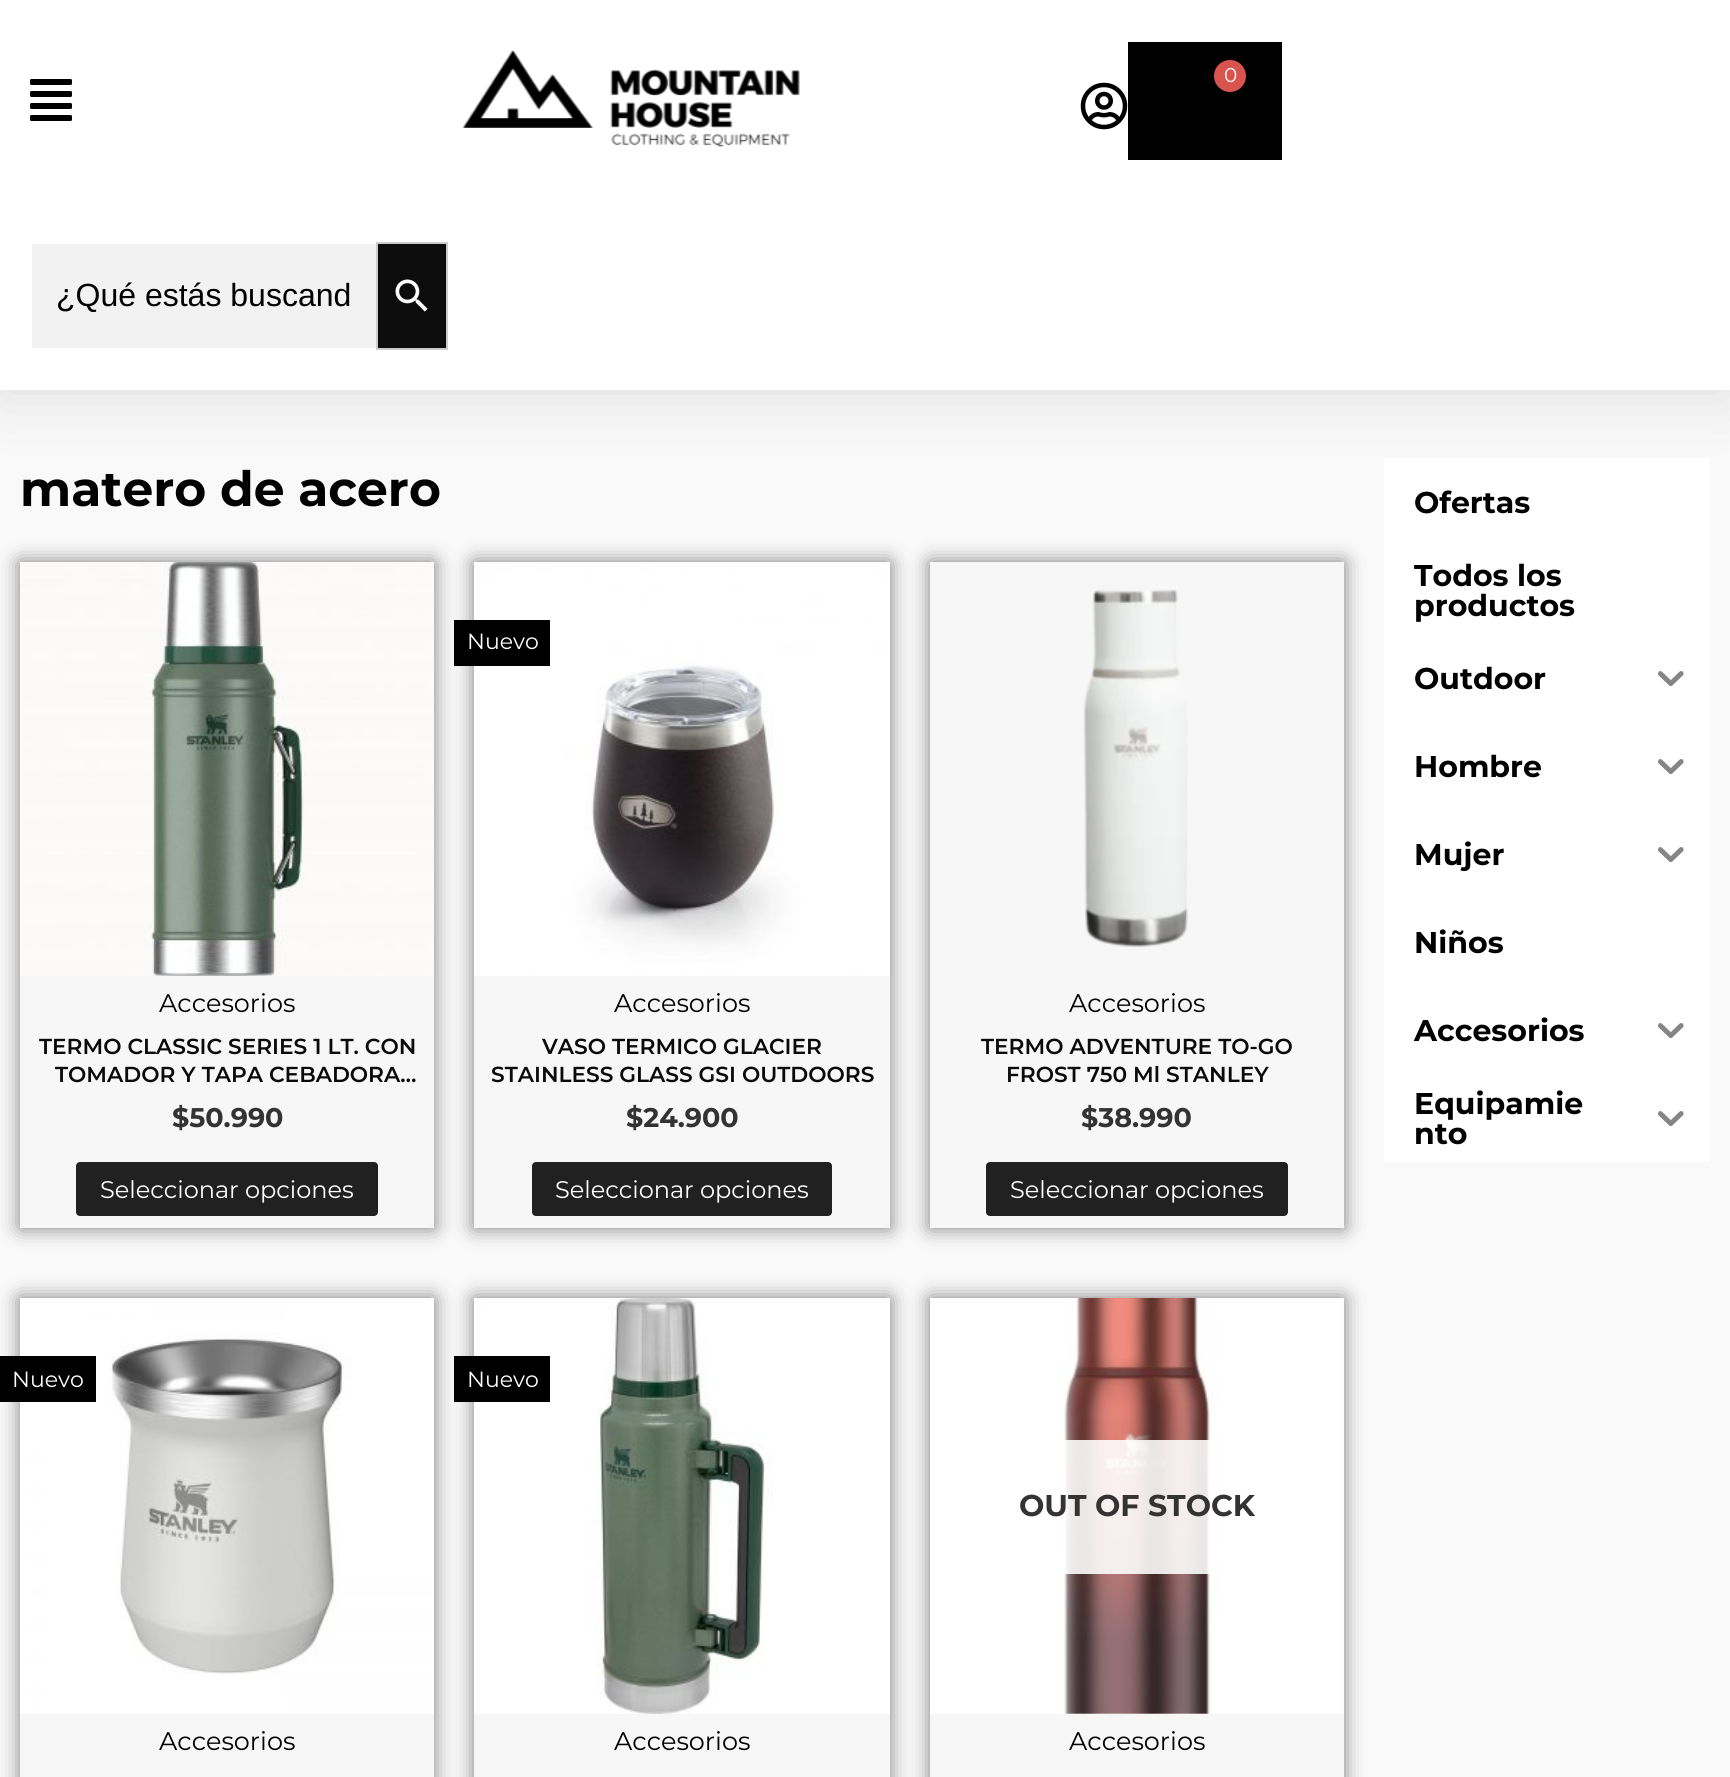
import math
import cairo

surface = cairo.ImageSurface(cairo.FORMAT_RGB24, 1730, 1777)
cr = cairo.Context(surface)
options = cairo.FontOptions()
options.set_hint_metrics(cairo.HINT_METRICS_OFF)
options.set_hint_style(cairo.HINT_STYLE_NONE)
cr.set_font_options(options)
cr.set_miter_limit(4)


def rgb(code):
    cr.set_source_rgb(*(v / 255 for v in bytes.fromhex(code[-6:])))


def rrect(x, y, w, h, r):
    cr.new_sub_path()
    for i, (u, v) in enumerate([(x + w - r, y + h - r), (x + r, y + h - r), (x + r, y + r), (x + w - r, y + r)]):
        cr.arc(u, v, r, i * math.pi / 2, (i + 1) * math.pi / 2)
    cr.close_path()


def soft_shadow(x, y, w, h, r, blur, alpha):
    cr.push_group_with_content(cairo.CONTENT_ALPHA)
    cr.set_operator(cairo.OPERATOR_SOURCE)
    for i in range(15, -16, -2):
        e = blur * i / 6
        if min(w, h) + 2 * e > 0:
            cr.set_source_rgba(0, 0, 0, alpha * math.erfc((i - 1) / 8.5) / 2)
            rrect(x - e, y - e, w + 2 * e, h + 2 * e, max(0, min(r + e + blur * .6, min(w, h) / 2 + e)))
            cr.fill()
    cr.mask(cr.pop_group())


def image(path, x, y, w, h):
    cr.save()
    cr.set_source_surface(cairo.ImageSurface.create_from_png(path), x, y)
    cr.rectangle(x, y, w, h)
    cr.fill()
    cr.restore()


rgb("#f9f9f9")
cr.paint()
rgb("#ffffff")
cr.rectangle(1384, 458, 326, 704)
cr.fill()
rgb("#000000")
soft_shadow(0, 10, 1730, 390, 0, 30, 0.1)
rgb("#ffffff")
cr.rectangle(0, 0, 1730, 390)
cr.fill()
image("img/1.png", 462, 50, 338, 98)
rgb("#000000")
cr.rectangle(1128, 42, 154, 118)
cr.fill()
rgb("#d9534f")
cr.arc(1230, 76, 16, 0, 2 * math.pi)
cr.fill()
image("img/2.png", 1080, 82, 48, 48)
image("img/3.png", 30, 79, 42, 42)
rgb("#f2f2f2")
cr.rectangle(32, 244, 344, 104)
cr.fill()
rgb("#0c0c0c")
cr.rectangle(377, 243, 70, 106)
cr.fill_preserve()
rgb("#cccccc")
cr.stroke()
image("img/4.png", 395, 279, 33, 33)
rgb("#000000")
soft_shadow(20, 562, 414, 666, 0, 10, 0.5)
rgb("#f7f7f7")
cr.rectangle(20, 976, 414, 252)
cr.fill()
image("img/5.png", 20, 562, 414, 414)
rgb("#212121")
rrect(76, 1162, 302, 54, 4)
cr.fill()
rgb("#000000")
soft_shadow(474, 562, 416, 666, 0, 10, 0.5)
rgb("#f7f7f7")
cr.rectangle(474, 976, 416, 252)
cr.fill()
image("img/6.png", 474, 562, 416, 414)
rgb("#000000")
cr.rectangle(454, 620, 96, 46)
cr.fill()
rgb("#212121")
rrect(532, 1162, 300, 54, 4)
cr.fill()
rgb("#000000")
soft_shadow(930, 562, 414, 666, 0, 10, 0.5)
rgb("#f7f7f7")
cr.rectangle(930, 562, 414, 666)
cr.fill()
image("img/7.png", 1083, 589, 105, 359)
rgb("#212121")
rrect(986, 1162, 302, 54, 4)
cr.fill()
rgb("#000000")
soft_shadow(20, 1298, 414, 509, 0, 10, 0.5)
rgb("#f7f7f7")
cr.rectangle(20, 1714, 414, 63)
cr.fill()
image("img/8.png", 20, 1298, 414, 416)
rgb("#000000")
cr.rectangle(0, 1356, 96, 46)
cr.fill()
rgb("#000000")
soft_shadow(474, 1298, 416, 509, 0, 10, 0.5)
rgb("#f7f7f7")
cr.rectangle(474, 1714, 416, 63)
cr.fill()
image("img/9.png", 474, 1298, 416, 416)
rgb("#000000")
cr.rectangle(454, 1356, 96, 46)
cr.fill()
rgb("#000000")
soft_shadow(930, 1298, 414, 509, 0, 10, 0.5)
rgb("#f7f7f7")
cr.rectangle(930, 1298, 414, 479)
cr.fill()
image("img/10.png", 930, 1298, 414, 416)
cr.set_source_rgba(1, 1, 1, 0.88)
cr.rectangle(1063, 1440, 153, 134)
cr.fill()
image("img/11.png", 1658, 671, 26, 15)
image("img/11.png", 1658, 759, 26, 15)
image("img/11.png", 1658, 847, 26, 15)
image("img/11.png", 1658, 1023, 26, 15)
image("img/11.png", 1658, 1111, 26, 15)
cr.select_font_face("Montserrat")
cr.set_font_size(20)
rgb("#ffffff")
cr.move_to(1224, 82)
cr.show_text("0")
cr.select_font_face("Liberation Sans")
cr.set_font_size(32)
rgb("#000000")
cr.move_to(56, 306)
cr.show_text("¿Qué estás buscand")
cr.select_font_face("Montserrat", cairo.FONT_SLANT_NORMAL, cairo.FONT_WEIGHT_BOLD)
cr.set_font_size(48.75)
cr.move_to(20, 506)
cr.show_text("matero de acero")
cr.select_font_face("Montserrat")
cr.set_font_size(25.5)
cr.move_to(159, 1012)
cr.show_text("Accesorios")
cr.select_font_face("Montserrat SemiBold")
cr.set_font_size(21.7)
rgb("#0a0a0a")
cr.move_to(39, 1054)
cr.show_text("TERMO CLASSIC SERIES 1 LT. CON")
cr.move_to(55, 1082)
cr.show_text("TOMADOR Y TAPA CEBADORA…")
cr.select_font_face("Montserrat", cairo.FONT_SLANT_NORMAL, cairo.FONT_WEIGHT_BOLD)
cr.set_font_size(27)
rgb("#333333")
cr.move_to(172, 1127)
cr.show_text("$50.990")
cr.select_font_face("Montserrat")
cr.set_font_size(24)
rgb("#ffffff")
cr.move_to(100, 1198)
cr.show_text("Seleccionar opciones")
cr.set_font_size(22)
cr.move_to(467, 649)
cr.show_text("Nuevo")
cr.set_font_size(25.5)
rgb("#000000")
cr.move_to(614, 1012)
cr.show_text("Accesorios")
cr.select_font_face("Montserrat SemiBold")
cr.set_font_size(21.7)
rgb("#0a0a0a")
cr.move_to(542, 1054)
cr.show_text("VASO TERMICO GLACIER")
cr.move_to(491, 1082)
cr.show_text("STAINLESS GLASS GSI OUTDOORS")
cr.select_font_face("Montserrat", cairo.FONT_SLANT_NORMAL, cairo.FONT_WEIGHT_BOLD)
cr.set_font_size(27)
rgb("#333333")
cr.move_to(626, 1127)
cr.show_text("$24.900")
cr.select_font_face("Montserrat")
cr.set_font_size(24)
rgb("#ffffff")
cr.move_to(555, 1198)
cr.show_text("Seleccionar opciones")
cr.set_font_size(25.5)
rgb("#000000")
cr.move_to(1069, 1012)
cr.show_text("Accesorios")
cr.select_font_face("Montserrat SemiBold")
cr.set_font_size(21.7)
rgb("#0a0a0a")
cr.move_to(981, 1054)
cr.show_text("TERMO ADVENTURE TO-GO")
cr.move_to(1006, 1082)
cr.show_text("FROST 750 Ml STANLEY")
cr.select_font_face("Montserrat", cairo.FONT_SLANT_NORMAL, cairo.FONT_WEIGHT_BOLD)
cr.set_font_size(27)
rgb("#333333")
cr.move_to(1081, 1127)
cr.show_text("$38.990")
cr.select_font_face("Montserrat")
cr.set_font_size(24)
rgb("#ffffff")
cr.move_to(1010, 1198)
cr.show_text("Seleccionar opciones")
cr.set_font_size(22)
cr.move_to(12, 1387)
cr.show_text("Nuevo")
cr.set_font_size(25.5)
rgb("#000000")
cr.move_to(159, 1750)
cr.show_text("Accesorios")
cr.set_font_size(22)
rgb("#ffffff")
cr.move_to(467, 1387)
cr.show_text("Nuevo")
cr.set_font_size(25.5)
rgb("#000000")
cr.move_to(614, 1750)
cr.show_text("Accesorios")
cr.select_font_face("Montserrat", cairo.FONT_SLANT_NORMAL, cairo.FONT_WEIGHT_BOLD)
cr.set_font_size(30)
rgb("#333333")
cr.move_to(1019, 1516)
cr.show_text("OUT OF STOCK")
cr.select_font_face("Montserrat")
cr.set_font_size(25.5)
rgb("#000000")
cr.move_to(1069, 1750)
cr.show_text("Accesorios")
cr.select_font_face("Montserrat", cairo.FONT_SLANT_NORMAL, cairo.FONT_WEIGHT_BOLD)
cr.set_font_size(30)
for x, y, s in [
    (1414, 513, "Ofertas"),
    (1414, 586, "Todos los"),
    (1414, 616, "productos"),
    (1414, 689, "Outdoor"),
    (1414, 777, "Hombre"),
    (1414, 865, "Mujer"),
    (1414, 953, "Niños"),
    (1414, 1041, "Accesorios"),
    (1414, 1114, "Equipamie"),
    (1414, 1144, "nto"),
]:
    cr.move_to(x, y)
    cr.show_text(s)
surface.write_to_png("page.png")
